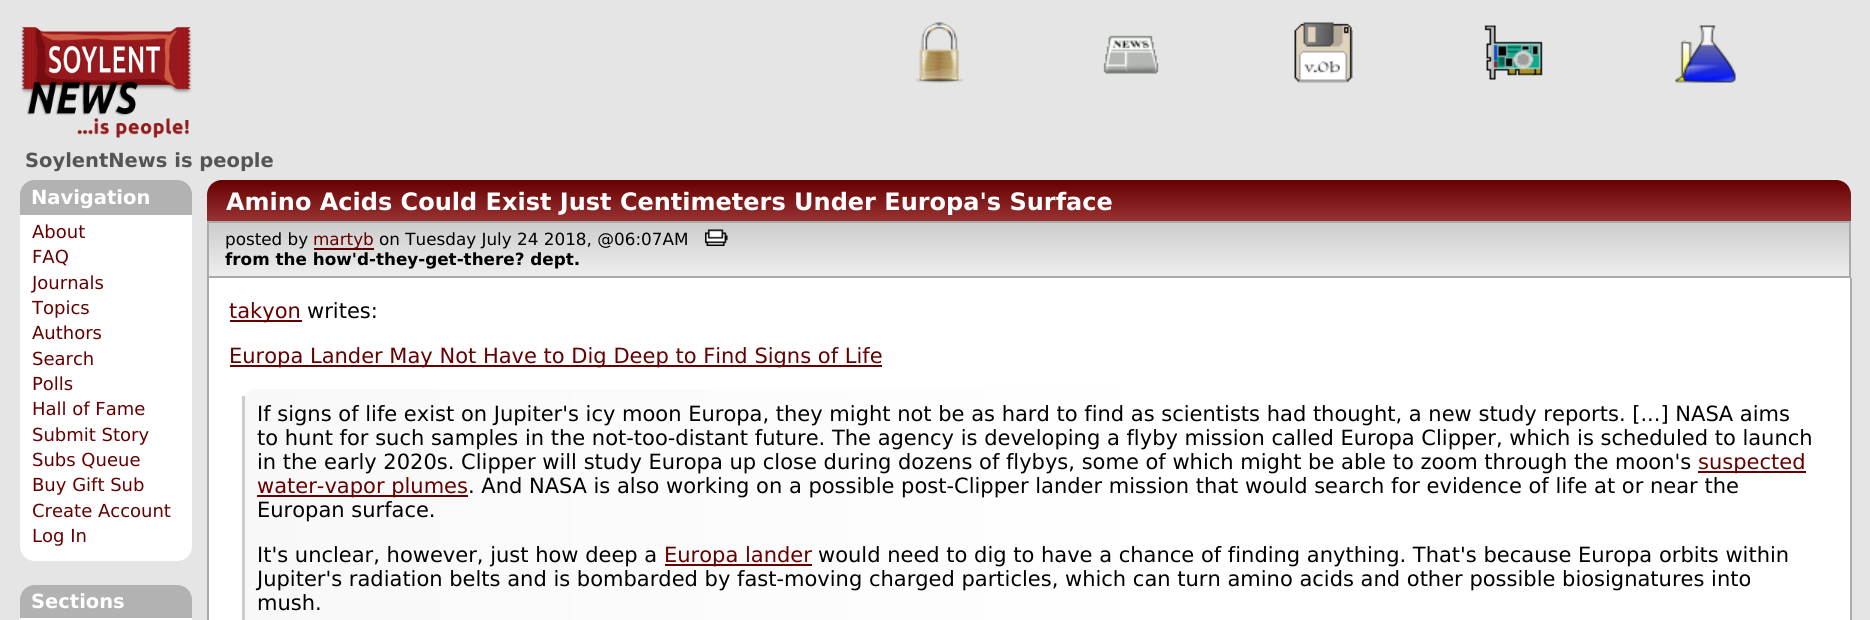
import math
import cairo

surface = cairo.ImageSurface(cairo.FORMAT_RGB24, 1870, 620)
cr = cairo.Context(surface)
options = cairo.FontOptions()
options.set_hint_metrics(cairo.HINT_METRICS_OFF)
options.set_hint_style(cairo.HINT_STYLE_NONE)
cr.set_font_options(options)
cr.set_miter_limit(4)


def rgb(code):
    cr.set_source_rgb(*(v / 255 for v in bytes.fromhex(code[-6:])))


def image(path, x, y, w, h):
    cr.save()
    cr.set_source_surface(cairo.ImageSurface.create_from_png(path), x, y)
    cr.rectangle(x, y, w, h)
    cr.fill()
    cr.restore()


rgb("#e5e5e5")
cr.paint()
image("img/1.png", 21, 27, 171, 111)
image("img/2.png", 915, 22, 49, 61)
image("img/3.png", 1103, 35, 56, 39)
image("img/4.png", 1294, 22, 59, 61)
image("img/5.png", 1484, 25, 59, 55)
image("img/6.png", 1675, 25, 61, 58)
rgb("#b2b2b2")
cr.new_path()
cr.move_to(35, 180)
cr.line_to(177, 180)
cr.curve_to(185.5, 180, 192, 186.5, 192, 195)
cr.line_to(192, 215)
cr.line_to(20, 215)
cr.line_to(20, 195)
cr.curve_to(20, 186.5, 26.5, 180, 35, 180)
cr.close_path()
cr.fill()
rgb("#ffffff")
cr.new_path()
cr.move_to(20, 215)
cr.line_to(192, 215)
cr.line_to(192, 546)
cr.curve_to(192, 554.5, 185.5, 561, 177, 561)
cr.line_to(35, 561)
cr.curve_to(26.5, 561, 20, 554.5, 20, 546)
cr.close_path()
cr.fill()
rgb("#b2b2b2")
cr.new_path()
cr.move_to(35, 585)
cr.line_to(177, 585)
cr.curve_to(185.5, 585, 192, 591.5, 192, 600)
cr.line_to(192, 618)
cr.line_to(20, 618)
cr.line_to(20, 600)
cr.curve_to(20, 591.5, 26.5, 585, 35, 585)
cr.close_path()
cr.fill()
rgb("#ffffff")
cr.rectangle(20, 618, 172, 2)
cr.fill()
gradient = cairo.LinearGradient(1029, 180, 1029, 221)
gradient.add_color_stop_rgba(0, 0.4, 0, 0, 1)
gradient.add_color_stop_rgba(1, 0.6, 0.2, 0.2, 1)
cr.set_source(gradient)
cr.new_path()
cr.move_to(222, 180)
cr.line_to(1836, 180)
cr.curve_to(1844.5, 180, 1851, 186.5, 1851, 195)
cr.line_to(1851, 221)
cr.line_to(207, 221)
cr.line_to(207, 195)
cr.curve_to(207, 186.5, 213.5, 180, 222, 180)
cr.close_path()
cr.fill()
gradient = cairo.LinearGradient(1029, 222, 1029, 276)
gradient.add_color_stop_rgba(0, 0.8, 0.8, 0.8, 1)
gradient.add_color_stop_rgba(1, 0.933, 0.933, 0.933, 1)
cr.set_source(gradient)
cr.rectangle(209, 223, 1640, 53)
cr.fill()
cr.rectangle(208, 222, 1642, 55)
rgb("#aaaaaa")
cr.stroke()
rgb("#660000")
cr.rectangle(314, 248, 60, 2)
cr.fill()
image("img/7.png", 705, 229, 23, 17)
for x, y, w, h, color in [
    (209, 278, 1641, 342, "#ffffff"),
    (1850, 278, 2, 342, "#aaaaaa"),
    (207, 278, 2, 342, "#aaaaaa"),
    (230, 320, 72, 2, "#660000"),
    (230, 365, 652, 2, "#660000"),
]:
    rgb(color)
    cr.rectangle(x, y, w, h)
    cr.fill()
cr.save()
cr.new_path()
cr.move_to(257, 389)
cr.line_to(1817, 389)
cr.line_to(1817, 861)
cr.line_to(250, 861)
cr.curve_to(245.5, 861, 242, 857.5, 242, 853)
cr.line_to(242, 404)
cr.curve_to(242, 395.5, 248.5, 389, 257, 389)
cr.close_path()
cr.clip()
gradient = cairo.LinearGradient(245, 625, 1817, 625)
gradient.add_color_stop_rgba(0, 0.973, 0.973, 0.973, 1)
gradient.add_color_stop_rgba(0.6, 1, 1, 1, 1)
cr.set_source(gradient)
cr.rectangle(245, 389, 1572, 231)
cr.fill()
cr.restore()
for x, y, w, h, color in [
    (242, 396, 3, 224, "#cccccc"),
    (1698, 471, 108, 2, "#660000"),
    (257, 495, 211, 2, "#660000"),
    (665, 564, 147, 2, "#660000"),
]:
    rgb(color)
    cr.rectangle(x, y, w, h)
    cr.fill()
cr.select_font_face("DejaVu Sans", cairo.FONT_SLANT_NORMAL, cairo.FONT_WEIGHT_BOLD)
cr.set_font_size(19.5)
rgb("#555555")
cr.move_to(25, 167)
cr.show_text("SoylentNews is people")
rgb("#ffffff")
cr.move_to(31, 204)
cr.show_text("Navigation")
cr.select_font_face("DejaVu Sans")
cr.set_font_size(18)
rgb("#660000")
for x, y, s in [
    (32, 238, "About"),
    (32, 263, "FAQ"),
    (32, 289, "Journals"),
    (32, 314, "Topics"),
    (32, 339, "Authors"),
    (32, 365, "Search"),
    (32, 390, "Polls"),
    (32, 415, "Hall of Fame"),
    (32, 441, "Submit Story"),
    (32, 466, "Subs Queue"),
    (32, 491, "Buy Gift Sub"),
    (32, 517, "Create Account"),
    (32, 542, "Log In"),
]:
    cr.move_to(x, y)
    cr.show_text(s)
cr.select_font_face("DejaVu Sans", cairo.FONT_SLANT_NORMAL, cairo.FONT_WEIGHT_BOLD)
cr.set_font_size(19.5)
rgb("#ffffff")
cr.move_to(31, 608)
cr.show_text("Sections")
cr.set_font_size(24)
cr.move_to(226, 210)
cr.show_text("Amino Acids Could Exist Just Centimeters Under Europa's Surface")
cr.select_font_face("DejaVu Sans")
cr.set_font_size(16.8)
rgb("#000000")
cr.move_to(225, 245)
cr.show_text("posted by")
rgb("#660000")
cr.move_to(313, 245)
cr.show_text("martyb")
rgb("#000000")
cr.move_to(379, 245)
cr.show_text("on Tuesday July 24 2018, @06:07AM")
cr.select_font_face("DejaVu Sans", cairo.FONT_SLANT_NORMAL, cairo.FONT_WEIGHT_BOLD)
cr.move_to(225, 265)
cr.show_text("from the how'd-they-get-there? dept.")
cr.select_font_face("DejaVu Sans")
cr.set_font_size(21)
rgb("#660000")
cr.move_to(229, 318)
cr.show_text("takyon")
rgb("#000000")
cr.move_to(307, 318)
cr.show_text("writes:")
rgb("#660000")
cr.move_to(229, 363)
cr.show_text("Europa Lander May Not Have to Dig Deep to Find Signs of Life")
rgb("#000000")
for x, y, s in [
    (257, 421, "If signs of life exist on Jupiter's icy moon Europa, they might not be as hard to find as scientists had thought, a new study reports. [...] NASA aims"),
    (257, 445, "to hunt for such samples in the not-too-distant future. The agency is developing a flyby mission called Europa Clipper, which is scheduled to launch"),
    (257, 469, "in the early 2020s. Clipper will study Europa up close during dozens of flybys, some of which might be able to zoom through the moon's"),
]:
    cr.move_to(x, y)
    cr.show_text(s)
rgb("#660000")
cr.move_to(1698, 469)
cr.show_text("suspected")
cr.move_to(257, 493)
cr.show_text("water-vapor plumes")
rgb("#000000")
for x, y, s in [
    (468, 493, ". And NASA is also working on a possible post-Clipper lander mission that would search for evidence of life at or near the"),
    (257, 517, "Europan surface."),
    (257, 562, "It's unclear, however, just how deep a"),
]:
    cr.move_to(x, y)
    cr.show_text(s)
rgb("#660000")
cr.move_to(664, 562)
cr.show_text("Europa lander")
rgb("#000000")
for x, y, s in [
    (818, 562, "would need to dig to have a chance of finding anything. That's because Europa orbits within"),
    (257, 586, "Jupiter's radiation belts and is bombarded by fast-moving charged particles, which can turn amino acids and other possible biosignatures into"),
    (257, 610, "mush."),
]:
    cr.move_to(x, y)
    cr.show_text(s)
surface.write_to_png("page.png")
